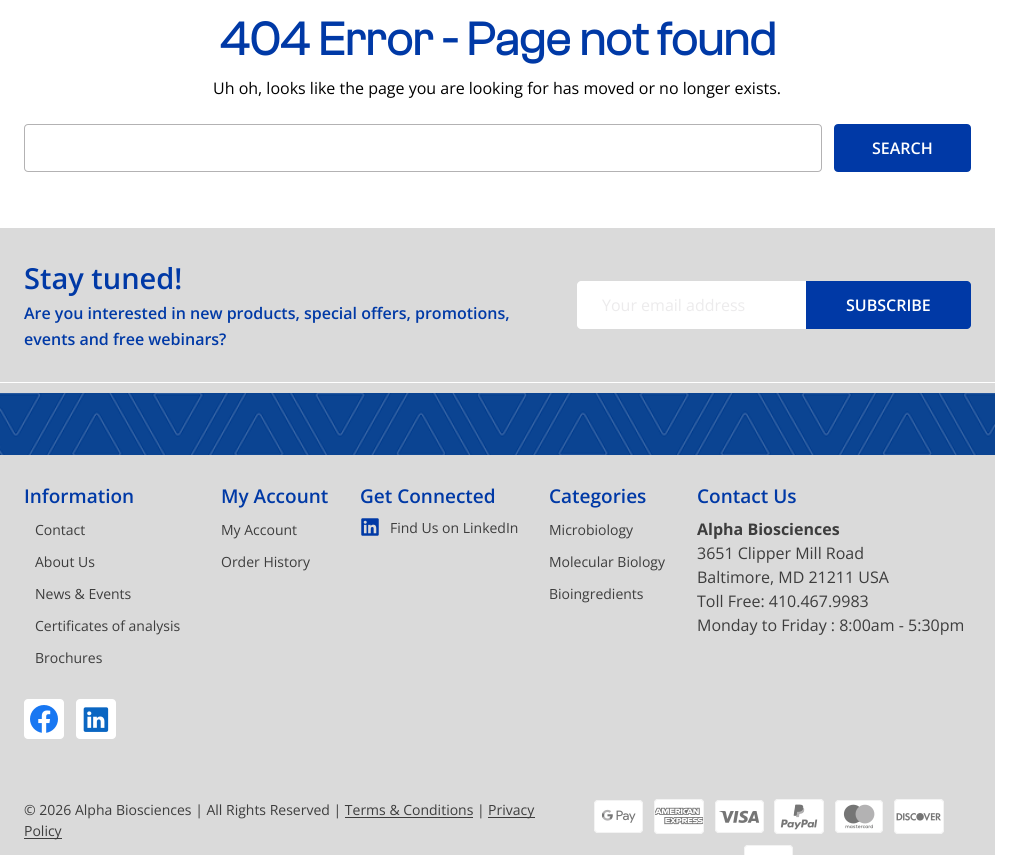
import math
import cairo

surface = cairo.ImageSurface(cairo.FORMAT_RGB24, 1010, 855)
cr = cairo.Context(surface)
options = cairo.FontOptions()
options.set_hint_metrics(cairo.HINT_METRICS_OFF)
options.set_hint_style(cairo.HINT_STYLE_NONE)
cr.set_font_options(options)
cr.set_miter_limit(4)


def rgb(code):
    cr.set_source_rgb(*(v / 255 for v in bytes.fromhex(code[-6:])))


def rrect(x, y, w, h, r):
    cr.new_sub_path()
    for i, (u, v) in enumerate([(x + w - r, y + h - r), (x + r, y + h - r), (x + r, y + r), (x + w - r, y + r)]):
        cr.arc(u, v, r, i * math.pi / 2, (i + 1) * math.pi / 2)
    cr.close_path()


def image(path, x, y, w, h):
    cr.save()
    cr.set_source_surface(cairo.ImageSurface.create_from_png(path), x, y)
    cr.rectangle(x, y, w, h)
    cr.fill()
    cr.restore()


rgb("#ffffff")
cr.paint()
rrect(24.5, 124.5, 797, 47, 3.5)
rgb("#b3b2b3")
cr.set_line_width(1)
cr.stroke()
rgb("#0039a6")
rrect(835, 125, 135, 46, 3)
cr.fill_preserve()
cr.set_line_width(2)
cr.stroke()
rgb("#dadada")
cr.rectangle(0, 228, 995, 627)
cr.fill()
rgb("#ffffff")
cr.rectangle(0, 382, 995, 1)
cr.fill()
cr.new_path()
cr.move_to(581, 281)
cr.line_to(806, 281)
cr.line_to(806, 329)
cr.line_to(581, 329)
cr.curve_to(579, 329, 577, 327, 577, 325)
cr.line_to(577, 285)
cr.curve_to(577, 283, 579, 281, 581, 281)
cr.close_path()
cr.fill()
rgb("#0039a6")
cr.new_path()
cr.move_to(806, 281)
cr.line_to(967, 281)
cr.curve_to(969, 281, 971, 283, 971, 285)
cr.line_to(971, 325)
cr.curve_to(971, 327, 969, 329, 967, 329)
cr.line_to(806, 329)
cr.close_path()
cr.fill()
image("img/1.png", 0, 393, 995, 62)
image("img/2.png", 361, 518, 18, 18)
rgb("#ffffff")
rrect(24, 699, 40, 40, 4)
cr.fill()
image("img/3.png", 30, 705, 28, 28)
rrect(76, 699, 40, 40, 4)
cr.fill()
image("img/4.png", 83, 707, 26, 25)
for x, y, w, h, color in [
    (488, 817, 47, 1, "#3d3d3d"),
    (345, 817, 128, 1, "#3d3d3d"),
    (24, 838, 38, 1, "#3d3d3d"),
]:
    rgb(color)
    cr.rectangle(x, y, w, h)
    cr.fill()
image("img/5.png", 594, 800, 49, 33)
image("img/6.png", 654, 799, 50, 35)
image("img/7.png", 715, 800, 49, 33)
image("img/8.png", 774, 799, 50, 35)
image("img/9.png", 835, 800, 48, 33)
image("img/10.png", 894, 799, 50, 35)
image("img/11.png", 744, 845, 49, 10)
cr.select_font_face("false", cairo.FONT_SLANT_NORMAL, cairo.FONT_WEIGHT_BOLD)
cr.set_font_size(48)
rgb("#0039a6")
cr.move_to(220, 55)
cr.show_text("404 Error - Page not found")
cr.select_font_face("Open Sans")
cr.set_font_size(16)
rgb("#000000")
cr.move_to(213, 94)
cr.show_text("Uh oh, looks like the page you are looking for has moved or no longer exists.")
cr.select_font_face("Open Sans SemiBold")
rgb("#ffffff")
cr.move_to(872, 154)
cr.show_text("SEARCH")
cr.set_font_size(29)
rgb("#0039a6")
cr.move_to(24, 289)
cr.show_text("Stay tuned!")
cr.set_font_size(16)
cr.move_to(24, 319)
cr.show_text("Are you interested in new products, special offers, promotions,")
cr.move_to(24, 345)
cr.show_text("events and free webinars?")
cr.select_font_face("Open Sans")
rgb("#ecebec")
cr.move_to(602, 311)
cr.show_text("Your email address")
cr.select_font_face("Open Sans SemiBold")
rgb("#ffffff")
cr.move_to(846, 311)
cr.show_text("SUBSCRIBE")
cr.set_font_size(19)
rgb("#0039a6")
cr.move_to(24, 503)
cr.show_text("Information")
cr.select_font_face("Open Sans")
cr.set_font_size(14)
rgb("#3d3d3d")
for x, y, s in [
    (35, 535, "Contact"),
    (35, 567, "About Us"),
    (35, 599, "News & Events"),
    (35, 631, "Certificates of analysis"),
    (35, 663, "Brochures"),
]:
    cr.move_to(x, y)
    cr.show_text(s)
cr.select_font_face("Open Sans SemiBold")
cr.set_font_size(19)
rgb("#0039a6")
cr.move_to(221, 503)
cr.show_text("My Account")
cr.select_font_face("Open Sans")
cr.set_font_size(14)
rgb("#3d3d3d")
cr.move_to(221, 535)
cr.show_text("My Account")
cr.move_to(221, 567)
cr.show_text("Order History")
cr.select_font_face("Open Sans SemiBold")
cr.set_font_size(19)
rgb("#0039a6")
cr.move_to(360, 503)
cr.show_text("Get Connected")
cr.select_font_face("Open Sans")
cr.set_font_size(14)
rgb("#3d3d3d")
cr.move_to(390, 533)
cr.show_text("Find Us on LinkedIn")
cr.select_font_face("Open Sans SemiBold")
cr.set_font_size(19)
rgb("#0039a6")
cr.move_to(549, 503)
cr.show_text("Categories")
cr.select_font_face("Open Sans")
cr.set_font_size(14)
rgb("#3d3d3d")
for x, y, s in [
    (549, 535, "Microbiology"),
    (549, 567, "Molecular Biology"),
    (549, 599, "Bioingredients"),
]:
    cr.move_to(x, y)
    cr.show_text(s)
cr.select_font_face("Open Sans SemiBold")
cr.set_font_size(19)
rgb("#0039a6")
cr.move_to(697, 503)
cr.show_text("Contact Us")
cr.select_font_face("Open Sans", cairo.FONT_SLANT_NORMAL, cairo.FONT_WEIGHT_BOLD)
cr.set_font_size(16)
rgb("#3d3d3d")
cr.move_to(697, 535)
cr.show_text("Alpha Biosciences")
cr.select_font_face("Open Sans")
for x, y, s in [
    (697, 559, "3651 Clipper Mill Road"),
    (697, 583, "Baltimore, MD 21211 USA"),
    (697, 607, "Toll Free: 410.467.9983"),
    (697, 631, "Monday to Friday : 8:00am - 5:30pm"),
]:
    cr.move_to(x, y)
    cr.show_text(s)
cr.set_font_size(14)
for x, y, s in [
    (24, 815, "© 2026 Alpha Biosciences | All Rights Reserved | Terms & Conditions |"),
    (488, 815, "Privacy"),
    (24, 836, "Policy"),
]:
    cr.move_to(x, y)
    cr.show_text(s)
surface.write_to_png("page.png")
